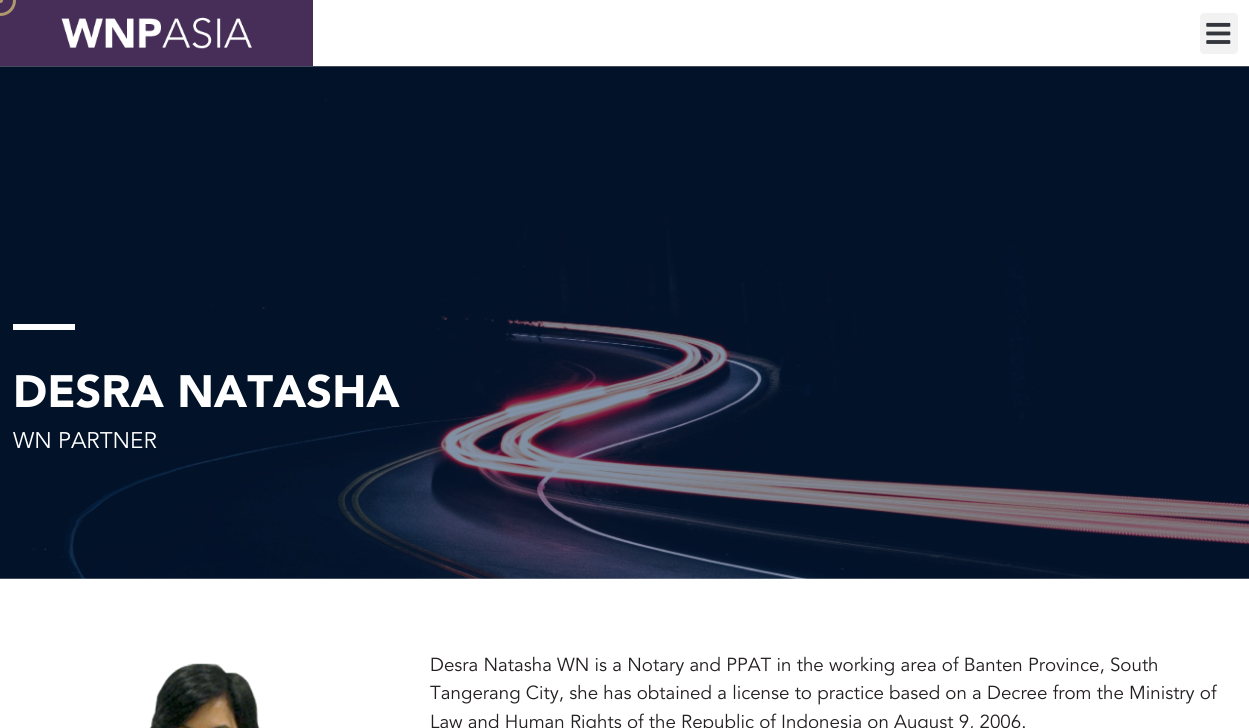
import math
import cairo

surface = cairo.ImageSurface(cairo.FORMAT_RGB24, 1249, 728)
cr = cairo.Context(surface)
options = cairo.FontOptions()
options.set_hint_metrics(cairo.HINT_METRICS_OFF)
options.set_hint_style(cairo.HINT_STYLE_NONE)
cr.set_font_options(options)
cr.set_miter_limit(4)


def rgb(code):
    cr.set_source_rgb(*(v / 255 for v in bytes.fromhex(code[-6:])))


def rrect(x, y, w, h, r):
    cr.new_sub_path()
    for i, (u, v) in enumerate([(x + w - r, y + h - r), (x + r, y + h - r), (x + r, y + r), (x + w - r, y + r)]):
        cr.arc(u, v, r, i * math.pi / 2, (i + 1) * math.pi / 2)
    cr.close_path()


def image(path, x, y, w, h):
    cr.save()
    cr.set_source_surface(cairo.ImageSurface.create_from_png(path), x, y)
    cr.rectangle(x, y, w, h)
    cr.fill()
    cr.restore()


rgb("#ffffff")
cr.paint()
rgb("#472e58")
cr.rectangle(0, 0, 313, 66)
cr.fill()
cr.arc(0.5, 0.5, 14, 0, 2 * math.pi)
rgb("#af986c")
cr.set_line_width(3)
cr.stroke()
cr.arc(0.5, 0.5, 2.5, 0, 2 * math.pi)
cr.fill()
image("img/1.png", 61, 17, 191, 32)
rgb("#f2f2f2")
rrect(1200, 13, 38, 41, 4)
cr.fill()
image("img/2.png", 1206, 22, 25, 22)
image("img/3.png", 0, 66, 1249, 513)
rgb("#ffffff")
cr.rectangle(13, 324, 62, 6)
cr.fill()
image("img/4.png", 149, 663, 111, 65)
cr.select_font_face("Avenir Black")
cr.set_font_size(45)
cr.move_to(13, 407)
cr.show_text("DESRA NATASHA")
cr.select_font_face("Avenir")
cr.set_font_size(22.5)
cr.move_to(13, 448)
cr.show_text("WN PARTNER")
cr.set_font_size(18.75)
rgb("#231f20")
for x, y, s in [
    (430, 671, "Desra Natasha WN is a Notary and PPAT in the working area of Banten Province, South"),
    (430, 699, "Tangerang City, she has obtained a license to practice based on a Decree from the Ministry of"),
    (430, 728, "Law and Human Rights of the Republic of Indonesia on August 9, 2006."),
]:
    cr.move_to(x, y)
    cr.show_text(s)
surface.write_to_png("page.png")
